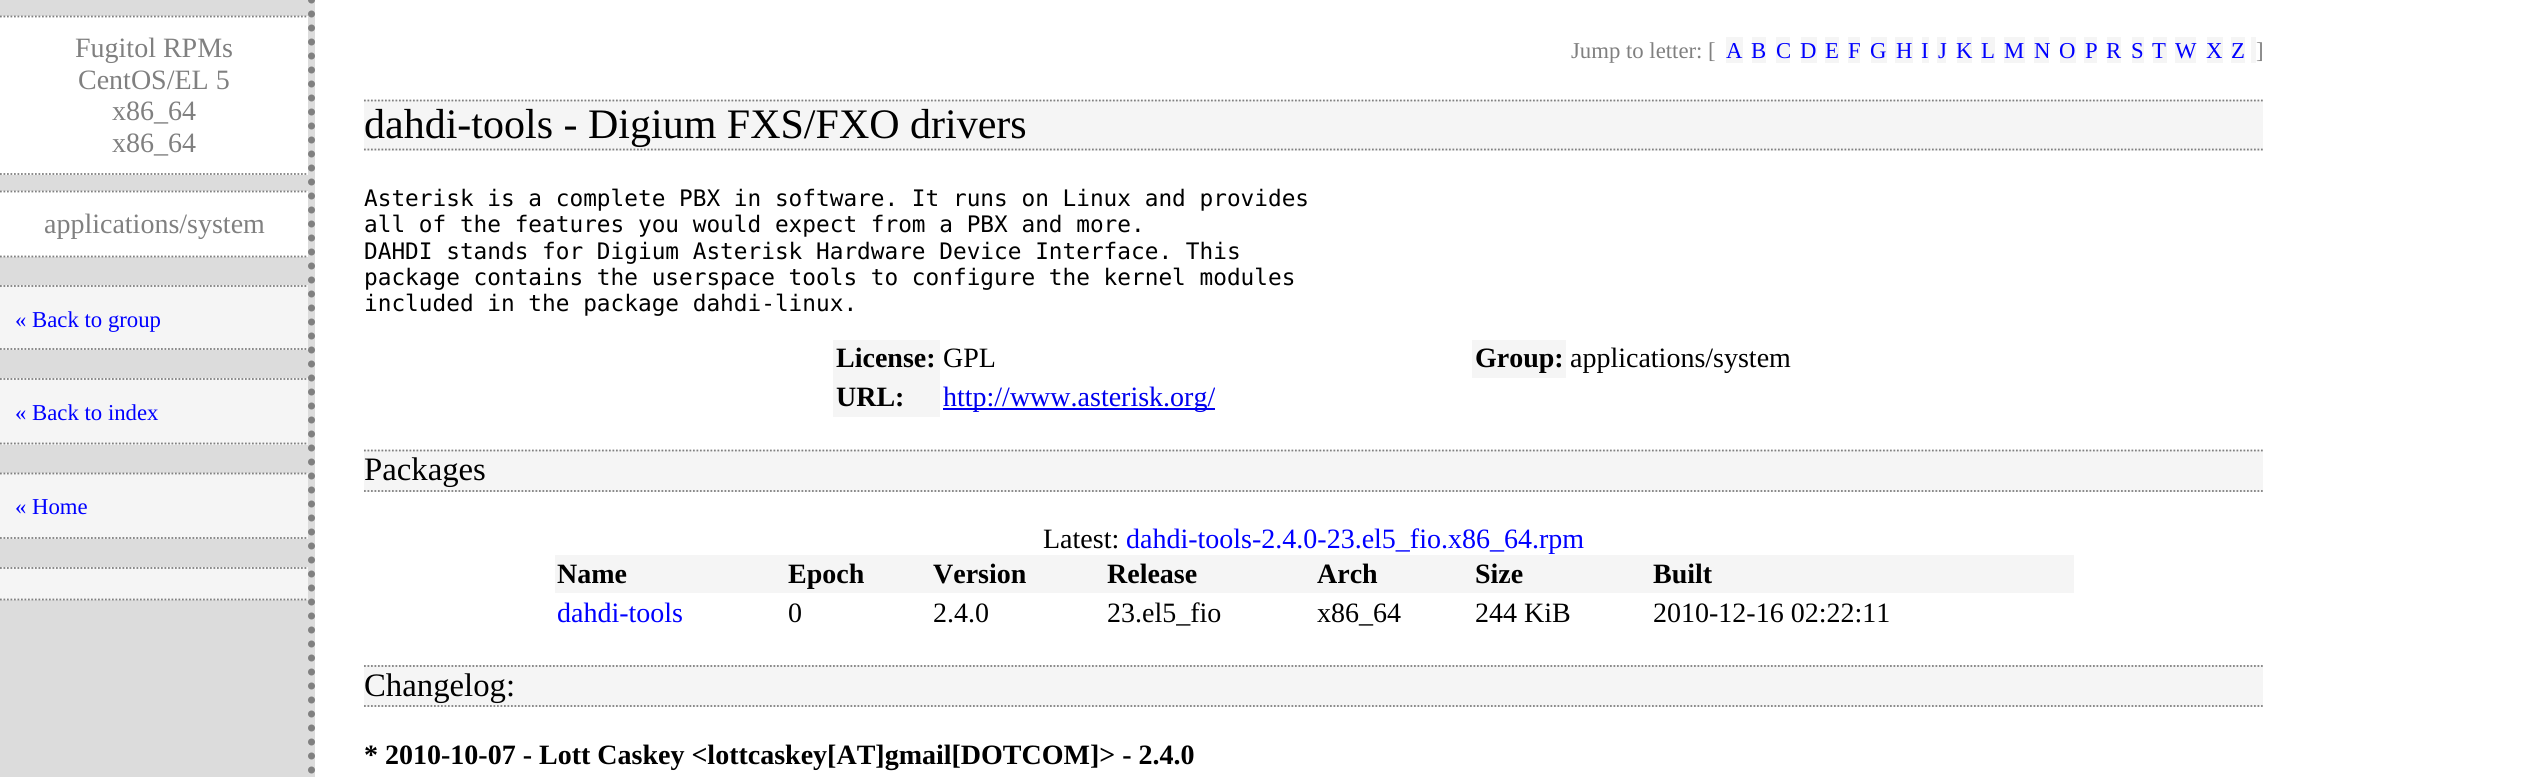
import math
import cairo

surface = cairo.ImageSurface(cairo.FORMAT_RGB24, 2532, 777)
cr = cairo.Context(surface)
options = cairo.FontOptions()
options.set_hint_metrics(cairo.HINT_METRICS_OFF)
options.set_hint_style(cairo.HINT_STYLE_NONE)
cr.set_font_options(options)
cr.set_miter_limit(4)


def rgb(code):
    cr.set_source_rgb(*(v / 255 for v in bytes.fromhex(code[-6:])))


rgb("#ffffff")
cr.paint()
rgb("#dcdcdc")
cr.rectangle(0, 0, 315, 777)
cr.fill()
cr.new_path()
cr.move_to(311.5, 0)
cr.line_to(311.5, 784)
rgb("#808080")
cr.set_line_width(7)
cr.set_line_cap(cairo.LINE_CAP_ROUND)
cr.set_dash([0, 14])
cr.stroke()
rgb("#ffffff")
cr.rectangle(0, 16, 308, 159)
cr.fill()
cr.new_path()
cr.move_to(0, 16.5)
cr.line_to(308, 16.5)
rgb("#808080")
cr.set_line_width(1.8)
cr.set_line_cap(cairo.LINE_CAP_BUTT)
cr.set_dash([1.75, 1.75])
cr.stroke()
cr.new_path()
cr.move_to(0, 174)
cr.line_to(308, 174)
cr.stroke()
rgb("#ffffff")
cr.rectangle(0, 191, 308, 66)
cr.fill()
cr.new_path()
cr.move_to(0, 191.5)
cr.line_to(308, 191.5)
rgb("#808080")
cr.stroke()
cr.new_path()
cr.move_to(0, 256.5)
cr.line_to(308, 256.5)
cr.stroke()
rgb("#f5f5f5")
cr.rectangle(0, 285, 308, 65)
cr.fill()
cr.new_path()
cr.move_to(0, 286)
cr.line_to(308, 286)
rgb("#808080")
cr.stroke()
cr.new_path()
cr.move_to(0, 349)
cr.line_to(308, 349)
cr.stroke()
rgb("#f5f5f5")
cr.rectangle(0, 378, 308, 67)
cr.fill()
cr.new_path()
cr.move_to(0, 379)
cr.line_to(308, 379)
rgb("#808080")
cr.stroke()
cr.new_path()
cr.move_to(0, 443.5)
cr.line_to(308, 443.5)
cr.stroke()
rgb("#f5f5f5")
cr.rectangle(0, 473, 308, 66)
cr.fill()
cr.new_path()
cr.move_to(0, 473.5)
cr.line_to(308, 473.5)
rgb("#808080")
cr.stroke()
cr.new_path()
cr.move_to(0, 538)
cr.line_to(308, 538)
cr.stroke()
rgb("#f5f5f5")
cr.rectangle(0, 567, 308, 33)
cr.fill()
cr.new_path()
cr.move_to(0, 568)
cr.line_to(308, 568)
rgb("#808080")
cr.stroke()
cr.new_path()
cr.move_to(0, 599.5)
cr.line_to(308, 599.5)
cr.stroke()
for x, y, w, h, color in [
    (1726, 37, 17, 26, "#f5f5f5"),
    (1752, 37, 14, 26, "#f5f5f5"),
    (1776, 37, 14, 26, "#f5f5f5"),
    (1801, 37, 16, 26, "#f5f5f5"),
    (1825, 37, 14, 26, "#f5f5f5"),
    (1848, 37, 12, 26, "#f5f5f5"),
    (1871, 37, 16, 26, "#f5f5f5"),
    (1895, 37, 18, 26, "#f5f5f5"),
    (1922, 37, 7, 26, "#f5f5f5"),
    (1937, 37, 9, 26, "#f5f5f5"),
    (1957, 37, 15, 26, "#f5f5f5"),
    (1981, 37, 14, 26, "#f5f5f5"),
    (2004, 37, 21, 26, "#f5f5f5"),
    (2034, 37, 15, 26, "#f5f5f5"),
    (2060, 37, 16, 26, "#f5f5f5"),
    (2084, 37, 13, 26, "#f5f5f5"),
    (2107, 37, 14, 26, "#f5f5f5"),
    (2132, 37, 12, 26, "#f5f5f5"),
    (2153, 37, 14, 26, "#f5f5f5"),
    (2175, 37, 21, 26, "#f5f5f5"),
    (2207, 37, 16, 26, "#f5f5f5"),
    (2231, 37, 14, 26, "#f5f5f5"),
    (2251, 37, 5, 26, "#f5f5f5"),
    (364, 100, 1899, 51, "#f5f5f5"),
]:
    rgb(color)
    cr.rectangle(x, y, w, h)
    cr.fill()
cr.new_path()
cr.move_to(364, 100.5)
cr.line_to(2263, 100.5)
rgb("#808080")
cr.stroke()
cr.new_path()
cr.move_to(364, 149.5)
cr.line_to(2263, 149.5)
cr.stroke()
for x, y, w, h, color in [
    (833, 340, 107, 77, "#f5f5f5"),
    (1472, 340, 94, 38, "#f5f5f5"),
    (943, 408, 272, 2, "#0000ee"),
    (364, 450, 1899, 42, "#f5f5f5"),
]:
    rgb(color)
    cr.rectangle(x, y, w, h)
    cr.fill()
cr.new_path()
cr.move_to(364, 450.5)
cr.line_to(2263, 450.5)
rgb("#808080")
cr.stroke()
cr.new_path()
cr.move_to(364, 491)
cr.line_to(2263, 491)
cr.stroke()
rgb("#f5f5f5")
cr.rectangle(555, 555, 1519, 38)
cr.fill()
cr.rectangle(364, 665, 1899, 42)
cr.fill()
cr.new_path()
cr.move_to(364, 666)
cr.line_to(2263, 666)
rgb("#808080")
cr.stroke()
cr.new_path()
cr.move_to(364, 706)
cr.line_to(2263, 706)
cr.stroke()
cr.select_font_face("Liberation Serif")
cr.set_font_size(28)
for x, y, s in [
    (75, 57, "Fugitol RPMs"),
    (78, 89, "CentOS/EL 5"),
    (112, 120, "x86_64"),
    (112, 152, "x86_64"),
    (44, 233, "applications/system"),
]:
    cr.move_to(x, y)
    cr.show_text(s)
cr.set_font_size(22.75)
rgb("#0000ff")
for x, y, s in [
    (15, 327, "« Back to group"),
    (15, 420, "« Back to index"),
    (15, 514, "« Home"),
]:
    cr.move_to(x, y)
    cr.show_text(s)
rgb("#808080")
cr.move_to(1571, 58)
cr.show_text("Jump to letter: [")
rgb("#0000ff")
for x, y, s in [
    (1726, 58, "A"),
    (1751, 58, "B"),
    (1776, 58, "C"),
    (1800, 58, "D"),
    (1825, 58, "E"),
    (1848, 58, "F"),
    (1870, 58, "G"),
    (1896, 58, "H"),
    (1921, 58, "I"),
    (1938, 58, "J"),
    (1956, 58, "K"),
    (1981, 58, "L"),
    (2004, 58, "M"),
    (2034, 58, "N"),
    (2059, 58, "O"),
    (2085, 58, "P"),
    (2106, 58, "R"),
    (2131, 58, "S"),
    (2152, 58, "T"),
    (2175, 58, "W"),
    (2206, 58, "X"),
    (2231, 58, "Z"),
]:
    cr.move_to(x, y)
    cr.show_text(s)
rgb("#808080")
cr.move_to(2256, 58)
cr.show_text("]")
cr.set_font_size(42)
rgb("#000000")
cr.move_to(364, 138)
cr.show_text("dahdi-tools - Digium FXS/FXO drivers")
cr.select_font_face("DejaVu Sans Mono")
cr.set_font_size(22.75)
for x, y, s in [
    (364, 206, "Asterisk is a complete PBX in software. It runs on Linux and provides"),
    (364, 232, "all of the features you would expect from a PBX and more."),
    (364, 259, "DAHDI stands for Digium Asterisk Hardware Device Interface. This"),
    (364, 285, "package contains the userspace tools to configure the kernel modules"),
    (364, 311, "included in the package dahdi-linux."),
]:
    cr.move_to(x, y)
    cr.show_text(s)
cr.select_font_face("Liberation Serif", cairo.FONT_SLANT_NORMAL, cairo.FONT_WEIGHT_BOLD)
cr.set_font_size(28)
cr.move_to(836, 367)
cr.show_text("License:")
cr.select_font_face("Liberation Serif")
cr.move_to(943, 367)
cr.show_text("GPL")
cr.select_font_face("Liberation Serif", cairo.FONT_SLANT_NORMAL, cairo.FONT_WEIGHT_BOLD)
cr.move_to(1475, 367)
cr.show_text("Group:")
cr.select_font_face("Liberation Serif")
cr.move_to(1570, 367)
cr.show_text("applications/system")
cr.select_font_face("Liberation Serif", cairo.FONT_SLANT_NORMAL, cairo.FONT_WEIGHT_BOLD)
cr.move_to(836, 406)
cr.show_text("URL:")
cr.select_font_face("Liberation Serif")
rgb("#0000ee")
cr.move_to(943, 406)
cr.show_text("http://www.asterisk.org/")
cr.set_font_size(32.75)
rgb("#000000")
cr.move_to(364, 480)
cr.show_text("Packages")
cr.set_font_size(28)
cr.move_to(1043, 548)
cr.show_text("Latest:")
rgb("#0000ff")
cr.move_to(1126, 548)
cr.show_text("dahdi-tools-2.4.0-23.el5_fio.x86_64.rpm")
cr.select_font_face("Liberation Serif", cairo.FONT_SLANT_NORMAL, cairo.FONT_WEIGHT_BOLD)
rgb("#000000")
for x, y, s in [
    (557, 583, "Name"),
    (788, 583, "Epoch"),
    (933, 583, "Version"),
    (1107, 583, "Release"),
    (1317, 583, "Arch"),
    (1475, 583, "Size"),
    (1653, 583, "Built"),
]:
    cr.move_to(x, y)
    cr.show_text(s)
cr.select_font_face("Liberation Serif")
rgb("#0000ff")
cr.move_to(557, 622)
cr.show_text("dahdi-tools")
rgb("#000000")
for x, y, s in [
    (788, 622, "0"),
    (933, 622, "2.4.0"),
    (1107, 622, "23.el5_fio"),
    (1317, 622, "x86_64"),
    (1475, 622, "244 KiB"),
    (1653, 622, "2010-12-16 02:22:11"),
]:
    cr.move_to(x, y)
    cr.show_text(s)
cr.set_font_size(32.75)
cr.move_to(364, 696)
cr.show_text("Changelog:")
cr.select_font_face("Liberation Serif", cairo.FONT_SLANT_NORMAL, cairo.FONT_WEIGHT_BOLD)
cr.set_font_size(28)
cr.move_to(364, 764)
cr.show_text("* 2010-10-07 - Lott Caskey <lottcaskey[AT]gmail[DOTCOM]> - 2.4.0")
surface.write_to_png("page.png")
